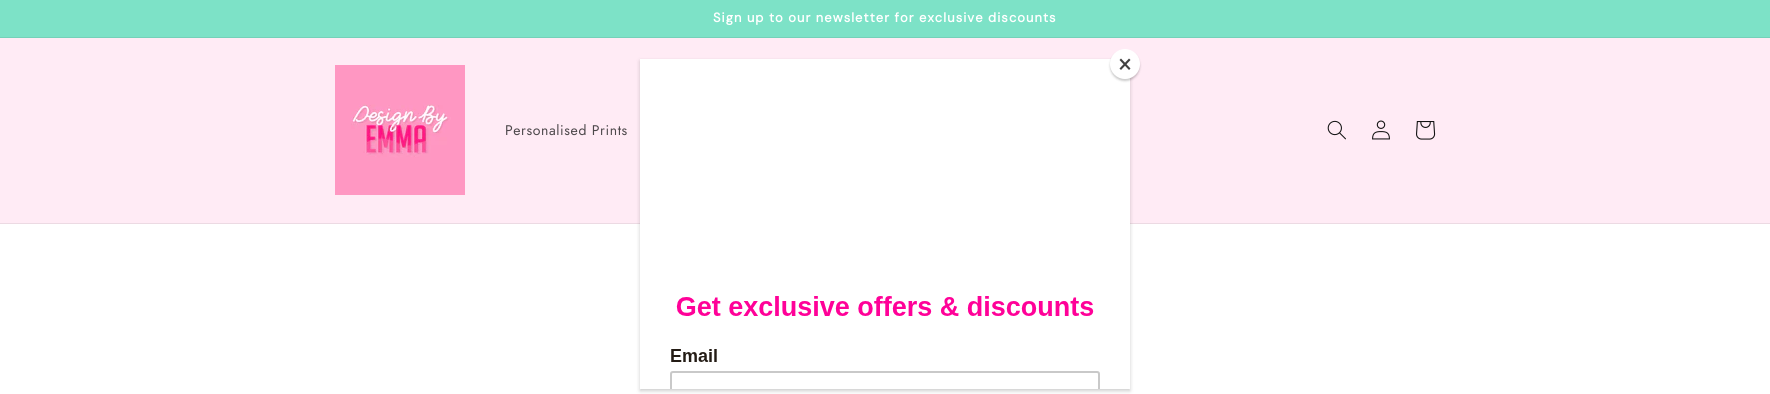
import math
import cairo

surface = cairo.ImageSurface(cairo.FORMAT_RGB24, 1770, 394)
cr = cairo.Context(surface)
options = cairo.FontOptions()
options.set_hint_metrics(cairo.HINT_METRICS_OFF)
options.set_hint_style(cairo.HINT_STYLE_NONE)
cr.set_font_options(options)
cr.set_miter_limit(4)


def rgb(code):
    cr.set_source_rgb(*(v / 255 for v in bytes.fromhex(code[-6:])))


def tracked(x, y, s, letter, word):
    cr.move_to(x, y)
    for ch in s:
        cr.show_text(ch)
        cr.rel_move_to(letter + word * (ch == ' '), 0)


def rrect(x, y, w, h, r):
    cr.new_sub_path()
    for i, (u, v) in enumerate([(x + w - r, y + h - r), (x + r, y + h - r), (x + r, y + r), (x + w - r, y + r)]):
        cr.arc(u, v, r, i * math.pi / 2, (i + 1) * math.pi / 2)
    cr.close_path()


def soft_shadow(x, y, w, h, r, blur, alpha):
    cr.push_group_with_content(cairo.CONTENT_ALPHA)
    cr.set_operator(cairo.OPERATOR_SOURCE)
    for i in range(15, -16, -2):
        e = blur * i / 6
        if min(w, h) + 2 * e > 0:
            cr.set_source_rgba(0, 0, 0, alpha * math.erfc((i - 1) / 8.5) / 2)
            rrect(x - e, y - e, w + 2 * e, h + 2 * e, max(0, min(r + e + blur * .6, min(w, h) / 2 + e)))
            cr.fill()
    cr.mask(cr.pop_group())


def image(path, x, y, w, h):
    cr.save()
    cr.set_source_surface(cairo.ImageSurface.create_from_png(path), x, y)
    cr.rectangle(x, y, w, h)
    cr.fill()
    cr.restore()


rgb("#ffffff")
cr.paint()
for x, y, w, h, color in [
    (0, 0, 1770, 37, "#7de2c7"),
    (0, 37, 1770, 1, "#74d1b9"),
    (0, 38, 1770, 185, "#ffebf5"),
    (0, 223, 1770, 1, "#ecdae3"),
]:
    rgb(color)
    cr.rectangle(x, y, w, h)
    cr.fill()
image("img/1.png", 335, 65, 130, 130)
image("img/2.png", 1327, 120, 19, 20)
image("img/3.png", 1372, 120, 18, 20)
image("img/4.png", 1416, 121, 20, 19)
rgb("#000000")
soft_shadow(640, 61, 490, 330, 0, 2, 0.2)
image("img/5.png", 640, 59, 490, 330)
soft_shadow(1110, 51, 30, 30, 15, 1, 0.2)
rgb("#ffffff")
cr.arc(1125, 64, 15, 0, 2 * math.pi)
cr.fill()
rgb("#414141")
cr.new_path()
cr.move_to(1129, 58.5)
cr.line_to(1130.5, 60)
cr.line_to(1121, 70)
cr.line_to(1119.5, 68.5)
cr.close_path()
cr.fill()
cr.new_path()
cr.move_to(1119.5, 60)
cr.line_to(1121, 58.5)
cr.line_to(1130.5, 68.5)
cr.line_to(1129, 70)
cr.close_path()
cr.fill()
cr.select_font_face("DM Sans", cairo.FONT_SLANT_NORMAL, cairo.FONT_WEIGHT_BOLD)
cr.set_font_size(13)
rgb("#ffffff")
tracked(713, 22, "Sign up to our newsletter for exclusive discounts", 1, 0)
cr.select_font_face("Jost")
cr.set_font_size(14)
rgb("#4d484b")
tracked(505, 135, "Personalised Prints", 0.6, 0)
surface.write_to_png("page.png")
